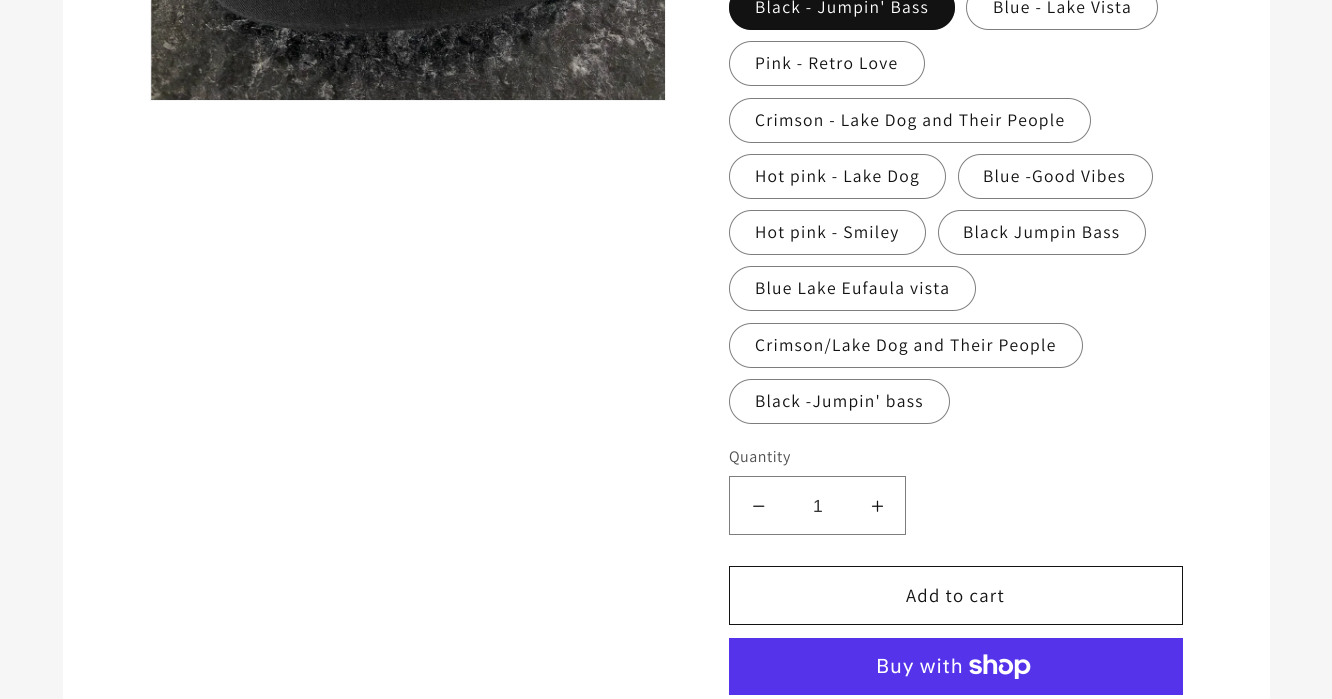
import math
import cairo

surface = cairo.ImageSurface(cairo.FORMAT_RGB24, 1332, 699)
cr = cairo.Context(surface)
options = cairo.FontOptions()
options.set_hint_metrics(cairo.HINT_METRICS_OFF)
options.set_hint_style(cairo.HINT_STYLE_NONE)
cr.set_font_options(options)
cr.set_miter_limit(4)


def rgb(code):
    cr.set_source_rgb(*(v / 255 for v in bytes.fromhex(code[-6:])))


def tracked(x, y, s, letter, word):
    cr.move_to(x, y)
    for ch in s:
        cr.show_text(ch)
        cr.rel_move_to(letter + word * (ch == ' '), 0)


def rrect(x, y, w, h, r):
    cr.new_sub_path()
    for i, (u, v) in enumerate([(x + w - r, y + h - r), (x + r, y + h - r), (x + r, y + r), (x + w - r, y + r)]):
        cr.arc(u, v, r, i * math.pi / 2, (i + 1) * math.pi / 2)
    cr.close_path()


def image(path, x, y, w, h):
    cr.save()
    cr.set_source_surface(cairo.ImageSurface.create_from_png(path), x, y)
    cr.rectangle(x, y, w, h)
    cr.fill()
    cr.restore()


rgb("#f6f6f6")
cr.paint()
rgb("#ffffff")
cr.rectangle(63, 0, 1207, 699)
cr.fill()
cr.rectangle(150.5, -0.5, 515, 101)
rgb("#f3f3f3")
cr.set_line_width(1)
cr.stroke()
image("img/1.png", 151, 0, 514, 100)
rgb("#121212")
rrect(729, -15, 226, 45, 22.5)
cr.fill()
rrect(729.5, -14.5, 225, 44, 22)
cr.set_source_rgba(0.071, 0.071, 0.071, 0.55)
cr.stroke()
rrect(966.5, -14.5, 191, 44, 22)
rgb("#7d7d7d")
cr.stroke()
rrect(729.5, 41.5, 195, 44, 22)
cr.stroke()
rrect(729.5, 98.5, 361, 44, 22)
cr.stroke()
rrect(729.5, 154.5, 216, 44, 22)
cr.stroke()
rrect(958.5, 154.5, 194, 44, 22)
cr.stroke()
rrect(729.5, 210.5, 196, 44, 22)
cr.stroke()
rrect(938.5, 210.5, 207, 44, 22)
cr.stroke()
rrect(729.5, 266.5, 246, 44, 22)
cr.stroke()
rrect(729.5, 323.5, 353, 44, 22)
cr.stroke()
rrect(729.5, 379.5, 220, 44, 22)
cr.stroke()
image("img/2.png", 753, 505, 12, 2)
image("img/3.png", 871, 500, 13, 12)
cr.rectangle(729.5, 476.5, 176, 58)
cr.stroke()
cr.rectangle(729.5, 566.5, 453, 58)
rgb("#121212")
cr.stroke()
rgb("#5433eb")
cr.rectangle(729, 638, 454, 57)
cr.fill()
image("img/4.png", 969, 654, 62, 25)
cr.select_font_face("Assistant")
cr.set_font_size(17.5)
rgb("#ffffff")
tracked(755, 13, "Black - Jumpin' Bass", 1.25, 0)
rgb("#121212")
for x, y, s in [
    (993, 13, "Blue - Lake Vista"),
    (755, 69, "Pink - Retro Love"),
    (755, 126, "Crimson - Lake Dog and Their People"),
    (755, 182, "Hot pink - Lake Dog"),
    (983, 182, "Blue -Good Vibes"),
    (755, 238, "Hot pink - Smiley"),
    (963, 238, "Black Jumpin Bass"),
    (755, 294, "Blue Lake Eufaula vista"),
    (755, 351, "Crimson/Lake Dog and Their People"),
    (755, 407, "Black -Jumpin' bass"),
]:
    tracked(x, y, s, 1.25, 0)
cr.set_font_size(16)
rgb("#4d4d4d")
tracked(729, 462, "Quantity", 0.5, 0)
cr.select_font_face("Liberation Sans")
cr.set_font_size(17.5)
rgb("#363636")
cr.move_to(813, 512)
cr.show_text("1")
cr.select_font_face("Assistant")
cr.set_font_size(18.75)
rgb("#121212")
tracked(906, 602, "Add to cart", 1.25, 0)
cr.select_font_face("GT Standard")
cr.set_font_size(20)
rgb("#ffffff")
tracked(876, 673, "Buy with", 0.75, 0)
surface.write_to_png("page.png")
